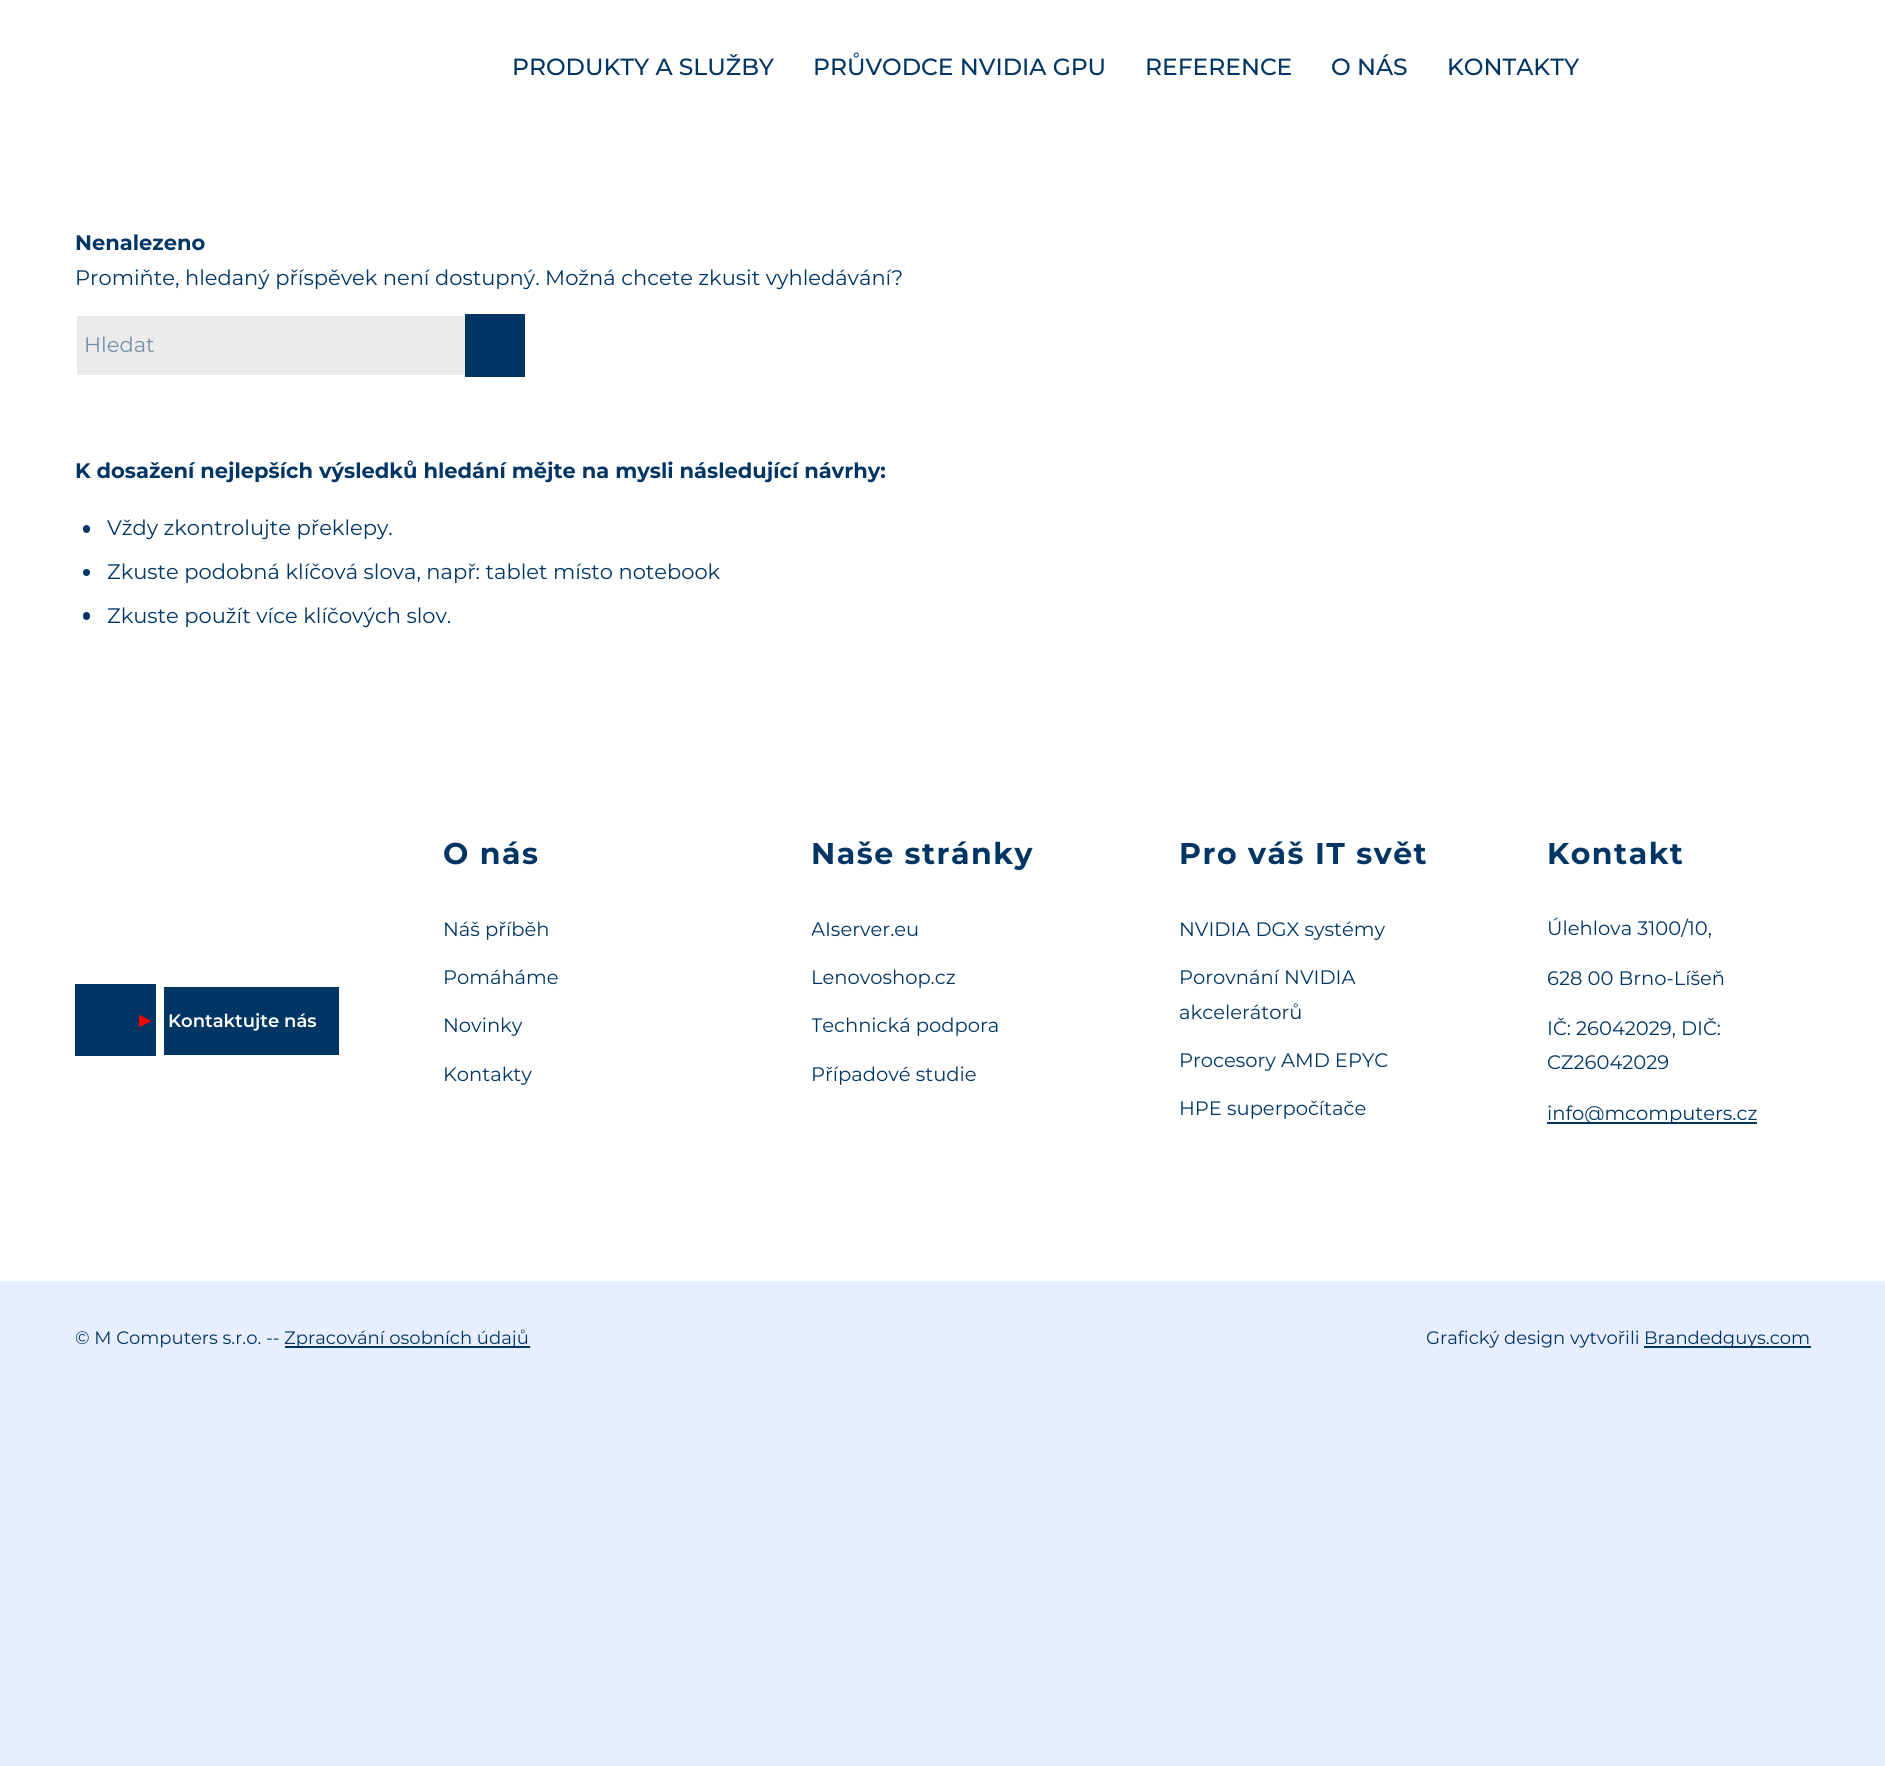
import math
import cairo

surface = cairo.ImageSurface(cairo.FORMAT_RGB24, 1885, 1766)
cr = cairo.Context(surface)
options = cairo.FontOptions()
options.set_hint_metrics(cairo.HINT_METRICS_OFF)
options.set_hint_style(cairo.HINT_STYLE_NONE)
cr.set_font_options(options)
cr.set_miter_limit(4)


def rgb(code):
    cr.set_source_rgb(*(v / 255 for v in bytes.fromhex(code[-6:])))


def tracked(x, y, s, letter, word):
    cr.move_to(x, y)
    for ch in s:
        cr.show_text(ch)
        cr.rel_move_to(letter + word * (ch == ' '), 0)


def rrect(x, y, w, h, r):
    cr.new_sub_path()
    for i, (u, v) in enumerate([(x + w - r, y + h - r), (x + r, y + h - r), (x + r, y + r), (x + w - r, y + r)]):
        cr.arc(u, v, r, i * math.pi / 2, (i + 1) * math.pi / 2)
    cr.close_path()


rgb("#e7eeff")
cr.paint()
for x, y, w, h, color in [
    (0, 0, 1885, 1281, "#ffffff"),
    (77, 316, 388, 59, "#ebebeb"),
    (465, 314, 60, 63, "#003564"),
]:
    rgb(color)
    cr.rectangle(x, y, w, h)
    cr.fill()
rrect(83, 525, 7, 8, 3.5)
cr.fill()
cr.arc(86.5, 572.5, 3.5, 0, 2 * math.pi)
cr.fill()
rrect(83, 612, 7, 8, 3.5)
cr.fill()
for x, y, w, h, color in [
    (75, 984, 81, 72, "#003564"),
    (164, 987, 175, 68, "#003564"),
    (1547, 1122, 210, 2, "#003564"),
    (285, 1346, 245, 2, "#003564"),
    (1644, 1346, 167, 2, "#003564"),
]:
    rgb(color)
    cr.rectangle(x, y, w, h)
    cr.fill()
cr.select_font_face("Montserrat Medium")
cr.set_font_size(23.4)
for x, y, s in [
    (512, 75, "PRODUKTY A SLUŽBY"),
    (813, 75, "PRŮVODCE NVIDIA GPU"),
    (1145, 75, "REFERENCE"),
    (1331, 75, "O NÁS"),
    (1447, 75, "KONTAKTY"),
]:
    cr.move_to(x, y)
    cr.show_text(s)
cr.select_font_face("Montserrat", cairo.FONT_SLANT_NORMAL, cairo.FONT_WEIGHT_BOLD)
cr.set_font_size(21)
cr.move_to(75, 250)
cr.show_text("Nenalezeno")
cr.select_font_face("Montserrat Thin")
cr.move_to(75, 285)
cr.show_text("Promiňte, hledaný příspěvek není dostupný. Možná chcete zkusit vyhledávání?")
rgb("#7690a8")
cr.move_to(84, 352)
cr.show_text("Hledat")
cr.select_font_face("Montserrat", cairo.FONT_SLANT_NORMAL, cairo.FONT_WEIGHT_BOLD)
rgb("#003564")
cr.move_to(75, 478)
cr.show_text("K dosažení nejlepších výsledků hledání mějte na mysli následující návrhy:")
cr.select_font_face("Montserrat Thin")
for x, y, s in [
    (107, 535, "Vždy zkontrolujte překlepy."),
    (107, 579, "Zkuste podobná klíčová slova, např: tablet místo notebook"),
    (107, 623, "Zkuste použít více klíčových slov."),
]:
    cr.move_to(x, y)
    cr.show_text(s)
cr.select_font_face("Liberation Sans", cairo.FONT_SLANT_NORMAL, cairo.FONT_WEIGHT_BOLD)
rgb("#ff0000")
cr.move_to(135, 1027)
cr.show_text("►")
cr.select_font_face("Montserrat SemiBold")
cr.set_font_size(18)
rgb("#ffffff")
cr.move_to(168, 1027)
cr.show_text("Kontaktujte nás")
cr.select_font_face("Montserrat", cairo.FONT_SLANT_NORMAL, cairo.FONT_WEIGHT_BOLD)
cr.set_font_size(30)
rgb("#003564")
tracked(443, 864, "O nás", 1.5, 0)
cr.select_font_face("Montserrat Thin")
cr.set_font_size(19.5)
for x, y, s in [
    (443, 936, "Náš příběh"),
    (443, 984, "Pomáháme"),
    (443, 1032, "Novinky"),
    (443, 1081, "Kontakty"),
]:
    cr.move_to(x, y)
    cr.show_text(s)
cr.select_font_face("Montserrat", cairo.FONT_SLANT_NORMAL, cairo.FONT_WEIGHT_BOLD)
cr.set_font_size(30)
tracked(811, 864, "Naše stránky", 1.5, 0)
cr.save()
cr.rectangle(812, 812, 262, 288)
cr.clip()
cr.select_font_face("Montserrat Thin")
cr.set_font_size(19.5)
cr.move_to(811, 936)
cr.show_text("AIserver.eu")
cr.restore()
cr.select_font_face("Montserrat Thin")
cr.set_font_size(19.5)
cr.move_to(811, 984)
cr.show_text("Lenovoshop.cz")
cr.save()
cr.rectangle(812, 812, 262, 288)
cr.clip()
cr.move_to(811, 1032)
cr.show_text("Technická podpora")
cr.restore()
cr.move_to(811, 1081)
cr.show_text("Případové studie")
cr.select_font_face("Montserrat", cairo.FONT_SLANT_NORMAL, cairo.FONT_WEIGHT_BOLD)
cr.set_font_size(30)
tracked(1179, 864, "Pro váš IT svět", 1.5, 0)
cr.select_font_face("Montserrat Thin")
cr.set_font_size(19.5)
for x, y, s in [
    (1179, 936, "NVIDIA DGX systémy"),
    (1179, 984, "Porovnání NVIDIA"),
    (1179, 1019, "akcelerátorů"),
    (1179, 1067, "Procesory AMD EPYC"),
    (1179, 1115, "HPE superpočítače"),
]:
    cr.move_to(x, y)
    cr.show_text(s)
cr.select_font_face("Montserrat", cairo.FONT_SLANT_NORMAL, cairo.FONT_WEIGHT_BOLD)
cr.set_font_size(30)
tracked(1547, 864, "Kontakt", 1.5, 0)
cr.select_font_face("Montserrat Thin")
cr.set_font_size(19.5)
for x, y, s in [
    (1547, 935, "Úlehlova 3100/10,"),
    (1547, 985, "628 00 Brno-Líšeň"),
    (1547, 1035, "IČ: 26042029, DIČ:"),
    (1547, 1069, "CZ26042029"),
    (1547, 1120, "info@mcomputers.cz"),
]:
    cr.move_to(x, y)
    cr.show_text(s)
cr.set_font_size(18)
for x, y, s in [
    (75, 1344, "© M Computers s.r.o. --"),
    (284, 1344, "Zpracování osobních údajů"),
    (1426, 1344, "Grafický design vytvořili"),
    (1644, 1344, "Brandedguys.com"),
]:
    cr.move_to(x, y)
    cr.show_text(s)
surface.write_to_png("page.png")
